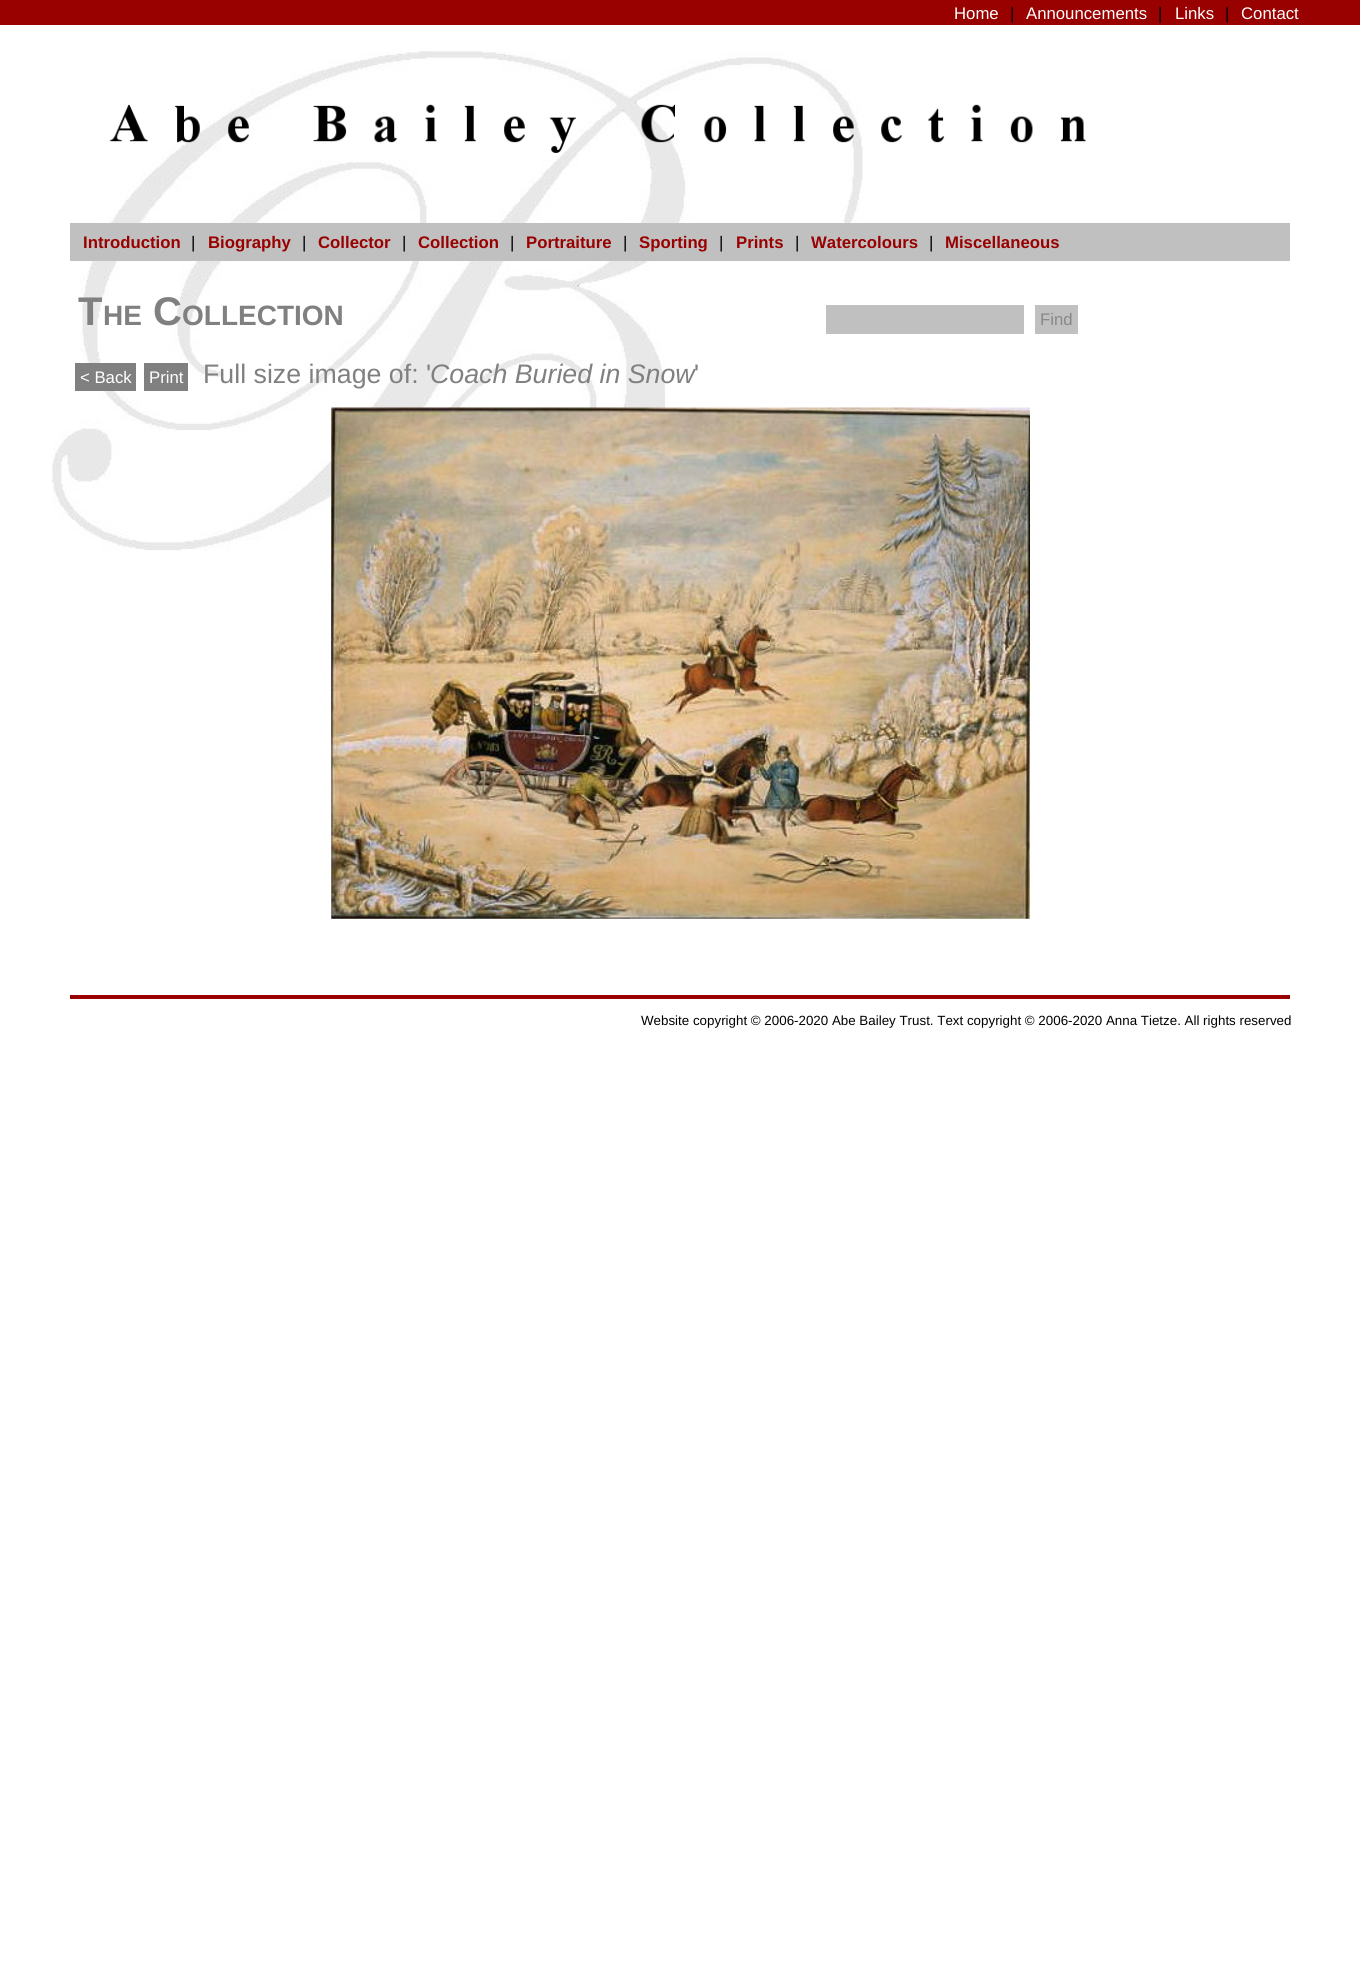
import math
import cairo

surface = cairo.ImageSurface(cairo.FORMAT_RGB24, 1360, 1974)
cr = cairo.Context(surface)
options = cairo.FontOptions()
options.set_hint_metrics(cairo.HINT_METRICS_OFF)
options.set_hint_style(cairo.HINT_STYLE_NONE)
cr.set_font_options(options)
cr.set_miter_limit(4)


def rgb(code):
    cr.set_source_rgb(*(v / 255 for v in bytes.fromhex(code[-6:])))


def image(path, x, y, w, h):
    cr.save()
    cr.set_source_surface(cairo.ImageSurface.create_from_png(path), x, y)
    cr.rectangle(x, y, w, h)
    cr.fill()
    cr.restore()


rgb("#ffffff")
cr.paint()
image("img/1.png", 52, 51, 811, 504)
rgb("#990000")
cr.rectangle(0, 0, 1360, 25)
cr.fill()
image("img/2.png", 109, 104, 977, 49)
for x, y, w, h, color in [
    (70, 223, 1220, 38, "#c0c0c0"),
    (826, 305, 198, 29, "#c0c0c0"),
    (1035, 305, 43, 29, "#c0c0c0"),
    (75, 363, 61, 28, "#808080"),
    (144, 363, 44, 28, "#808080"),
]:
    rgb(color)
    cr.rectangle(x, y, w, h)
    cr.fill()
image("img/3.png", 331, 407, 699, 512)
rgb("#990000")
cr.rectangle(70, 995, 1220, 4)
cr.fill()
cr.select_font_face("Liberation Sans")
cr.set_font_size(16.75)
rgb("#ffffff")
cr.move_to(954, 19)
cr.show_text("Home")
rgb("#000000")
cr.move_to(1010, 19)
cr.show_text("|")
rgb("#ffffff")
cr.move_to(1026, 19)
cr.show_text("Announcements")
rgb("#000000")
cr.move_to(1158, 19)
cr.show_text("|")
rgb("#ffffff")
cr.move_to(1175, 19)
cr.show_text("Links")
rgb("#000000")
cr.move_to(1225, 19)
cr.show_text("|")
rgb("#ffffff")
cr.move_to(1241, 19)
cr.show_text("Contact")
cr.select_font_face("Liberation Sans", cairo.FONT_SLANT_NORMAL, cairo.FONT_WEIGHT_BOLD)
rgb("#990000")
cr.move_to(83, 248)
cr.show_text("Introduction")
cr.select_font_face("Liberation Sans")
rgb("#000000")
cr.move_to(191, 248)
cr.show_text("|")
cr.select_font_face("Liberation Sans", cairo.FONT_SLANT_NORMAL, cairo.FONT_WEIGHT_BOLD)
rgb("#990000")
cr.move_to(208, 248)
cr.show_text("Biography")
cr.select_font_face("Liberation Sans")
rgb("#000000")
cr.move_to(302, 248)
cr.show_text("|")
cr.select_font_face("Liberation Sans", cairo.FONT_SLANT_NORMAL, cairo.FONT_WEIGHT_BOLD)
rgb("#990000")
cr.move_to(318, 248)
cr.show_text("Collector")
cr.select_font_face("Liberation Sans")
rgb("#000000")
cr.move_to(402, 248)
cr.show_text("|")
cr.select_font_face("Liberation Sans", cairo.FONT_SLANT_NORMAL, cairo.FONT_WEIGHT_BOLD)
rgb("#990000")
cr.move_to(418, 248)
cr.show_text("Collection")
cr.select_font_face("Liberation Sans")
rgb("#000000")
cr.move_to(510, 248)
cr.show_text("|")
cr.select_font_face("Liberation Sans", cairo.FONT_SLANT_NORMAL, cairo.FONT_WEIGHT_BOLD)
rgb("#990000")
cr.move_to(526, 248)
cr.show_text("Portraiture")
cr.select_font_face("Liberation Sans")
rgb("#000000")
cr.move_to(623, 248)
cr.show_text("|")
cr.select_font_face("Liberation Sans", cairo.FONT_SLANT_NORMAL, cairo.FONT_WEIGHT_BOLD)
rgb("#990000")
cr.move_to(639, 248)
cr.show_text("Sporting")
cr.select_font_face("Liberation Sans")
rgb("#000000")
cr.move_to(719, 248)
cr.show_text("|")
cr.select_font_face("Liberation Sans", cairo.FONT_SLANT_NORMAL, cairo.FONT_WEIGHT_BOLD)
rgb("#990000")
cr.move_to(736, 248)
cr.show_text("Prints")
cr.select_font_face("Liberation Sans")
rgb("#000000")
cr.move_to(795, 248)
cr.show_text("|")
cr.select_font_face("Liberation Sans", cairo.FONT_SLANT_NORMAL, cairo.FONT_WEIGHT_BOLD)
rgb("#990000")
cr.move_to(811, 248)
cr.show_text("Watercolours")
cr.select_font_face("Liberation Sans")
rgb("#000000")
cr.move_to(929, 248)
cr.show_text("|")
cr.select_font_face("Liberation Sans", cairo.FONT_SLANT_NORMAL, cairo.FONT_WEIGHT_BOLD)
rgb("#990000")
cr.move_to(945, 248)
cr.show_text("Miscellaneous")
cr.set_font_size(40)
rgb("#808080")
cr.move_to(78, 325)
cr.show_text("T")
cr.set_font_size(28)
cr.move_to(103, 325)
cr.show_text("HE")
cr.set_font_size(40)
cr.move_to(153, 325)
cr.show_text("C")
cr.set_font_size(28)
cr.move_to(182, 325)
cr.show_text("OLLECTION")
cr.select_font_face("Liberation Sans")
cr.set_font_size(16.75)
rgb("#888888")
cr.move_to(1040, 325)
cr.show_text("Find")
cr.set_font_size(26.75)
rgb("#808080")
cr.move_to(203, 383)
cr.show_text("Full size image of: '")
cr.select_font_face("Liberation Sans", cairo.FONT_SLANT_ITALIC)
cr.move_to(430, 383)
cr.show_text("Coach Buried in Snow")
cr.select_font_face("Liberation Sans")
cr.move_to(694, 383)
cr.show_text("'")
cr.set_font_size(16.75)
rgb("#ffffff")
cr.move_to(80, 383)
cr.show_text("< Back")
cr.move_to(149, 383)
cr.show_text("Print")
cr.set_font_size(13.35)
rgb("#000000")
cr.move_to(641, 1025)
cr.show_text("Website copyright © 2006-2020 Abe Bailey Trust. Text copyright © 2006-2020 Anna Tietze. All rights reserved")
surface.write_to_png("page.png")
